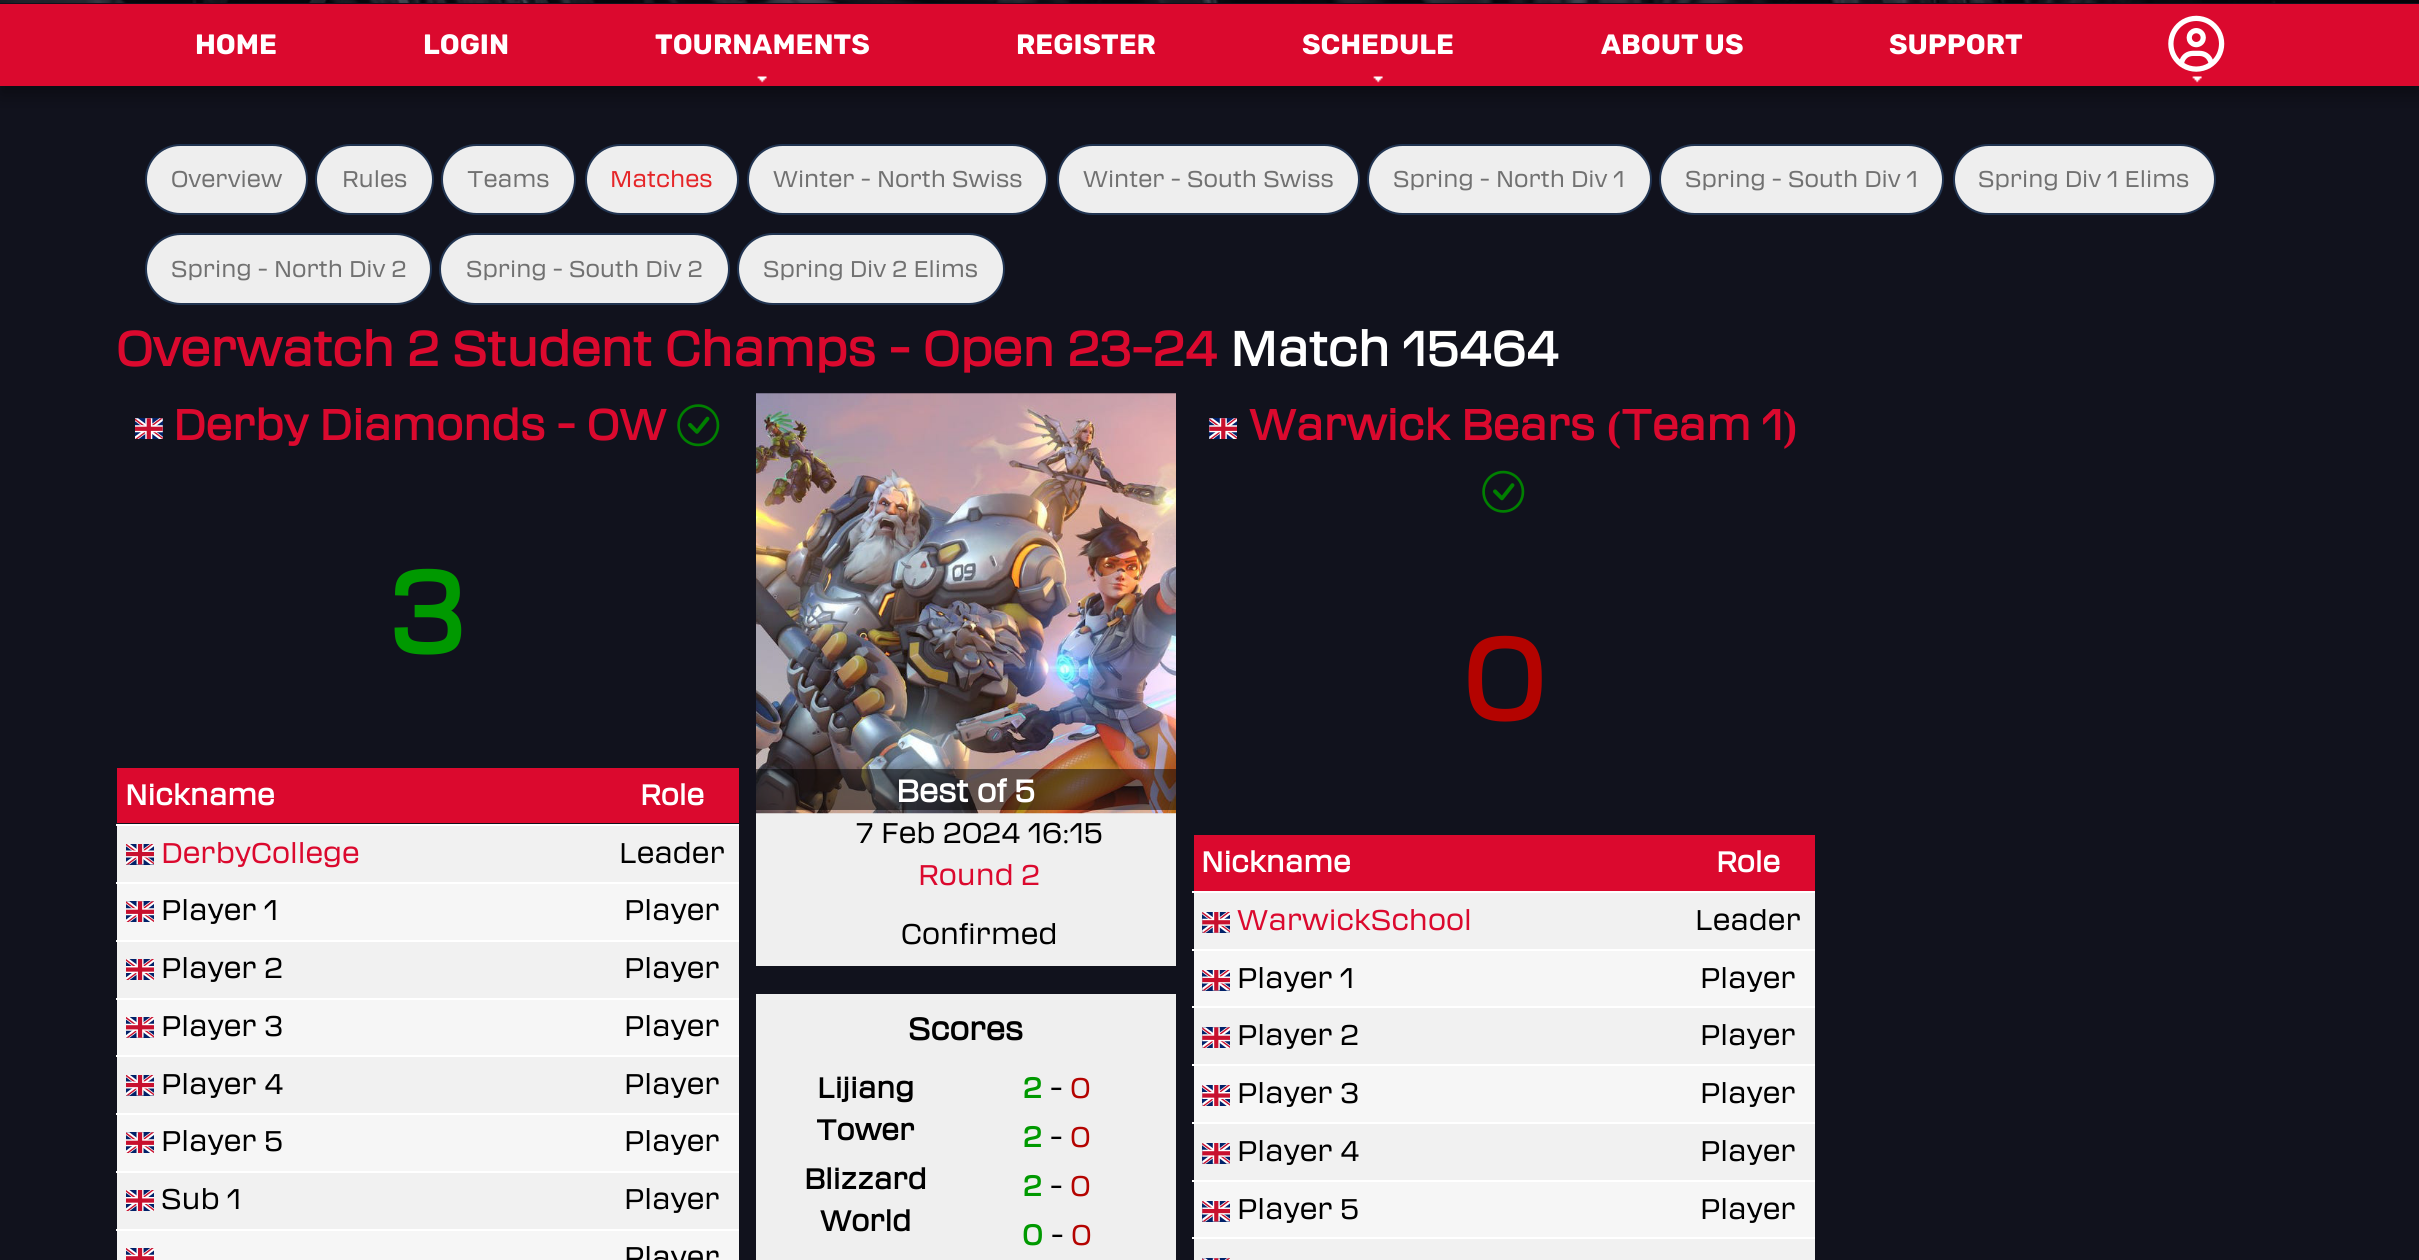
import math
import cairo

surface = cairo.ImageSurface(cairo.FORMAT_RGB24, 2419, 1260)
cr = cairo.Context(surface)
options = cairo.FontOptions()
options.set_hint_metrics(cairo.HINT_METRICS_OFF)
options.set_hint_style(cairo.HINT_STYLE_NONE)
cr.set_font_options(options)
cr.set_miter_limit(4)


def rgb(code):
    cr.set_source_rgb(*(v / 255 for v in bytes.fromhex(code[-6:])))


def rrect(x, y, w, h, r):
    cr.new_sub_path()
    for i, (u, v) in enumerate([(x + w - r, y + h - r), (x + r, y + h - r), (x + r, y + r), (x + w - r, y + r)]):
        cr.arc(u, v, r, i * math.pi / 2, (i + 1) * math.pi / 2)
    cr.close_path()


def soft_shadow(x, y, w, h, r, blur, alpha):
    cr.push_group_with_content(cairo.CONTENT_ALPHA)
    cr.set_operator(cairo.OPERATOR_SOURCE)
    for i in range(15, -16, -2):
        e = blur * i / 6
        if min(w, h) + 2 * e > 0:
            cr.set_source_rgba(0, 0, 0, alpha * math.erfc((i - 1) / 8.5) / 2)
            rrect(x - e, y - e, w + 2 * e, h + 2 * e, max(0, min(r + e + blur * .6, min(w, h) / 2 + e)))
            cr.fill()
    cr.mask(cr.pop_group())


def image(path, x, y, w, h):
    cr.save()
    cr.set_source_surface(cairo.ImageSurface.create_from_png(path), x, y)
    cr.rectangle(x, y, w, h)
    cr.fill()
    cr.restore()


rgb("#11121d")
cr.paint()
image("img/1.png", 0, 0, 2419, 3)
rgb("#000000")
soft_shadow(0, 12, 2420, 83, 0, 9, 0.36)
rgb("#db092e")
cr.rectangle(0, 4, 2419, 82)
cr.fill()
image("img/2.png", 757, 76, 10, 7)
image("img/3.png", 1373, 76, 10, 7)
image("img/3.png", 2192, 76, 10, 7)
image("img/4.png", 2168, 15, 57, 57)
rgb("#eeeeee")
rrect(146, 145, 161, 69, 34.5)
cr.fill_preserve()
rgb("#213451")
cr.stroke()
rgb("#eeeeee")
rrect(316, 145, 117, 69, 34.5)
cr.fill_preserve()
rgb("#213451")
cr.stroke()
rgb("#eeeeee")
rrect(442, 145, 133, 69, 34.5)
cr.fill_preserve()
rgb("#213451")
cr.stroke()
rgb("#eeeeee")
rrect(586, 145, 152, 69, 34.5)
cr.fill_preserve()
rgb("#213451")
cr.stroke()
rgb("#eeeeee")
rrect(748, 145, 299, 69, 34.5)
cr.fill_preserve()
rgb("#213451")
cr.stroke()
rgb("#eeeeee")
rrect(1058, 145, 301, 69, 34.5)
cr.fill_preserve()
rgb("#213451")
cr.stroke()
rgb("#eeeeee")
rrect(1368, 145, 283, 69, 34.5)
cr.fill_preserve()
rgb("#213451")
cr.stroke()
rgb("#eeeeee")
rrect(1660, 145, 283, 69, 34.5)
cr.fill_preserve()
rgb("#213451")
cr.stroke()
rgb("#eeeeee")
rrect(1954, 145, 261, 69, 34.5)
cr.fill_preserve()
rgb("#213451")
cr.stroke()
rgb("#eeeeee")
rrect(146, 234, 285, 70, 35)
cr.fill_preserve()
rgb("#213451")
cr.stroke()
rgb("#eeeeee")
rrect(440, 234, 289, 70, 35)
cr.fill_preserve()
rgb("#213451")
cr.stroke()
rgb("#eeeeee")
rrect(738, 234, 266, 70, 35)
cr.fill_preserve()
rgb("#213451")
cr.stroke()
image("img/5.png", 135, 418, 28, 21)
image("img/6.png", 677, 404, 43, 43)
for x, y, w, h, color in [
    (117, 768, 622, 55, "#db092e"),
    (116, 824, 623, 2, "#ffffff"),
    (117, 826, 622, 56, "#f1f1f1"),
]:
    rgb(color)
    cr.rectangle(x, y, w, h)
    cr.fill()
image("img/7.png", 126, 844, 28, 21)
rgb("#ffffff")
cr.rectangle(116, 882, 623, 2)
cr.fill()
rgb("#f6f6f6")
cr.rectangle(117, 884, 622, 56)
cr.fill()
image("img/8.png", 126, 901, 28, 21)
rgb("#ffffff")
cr.rectangle(116, 940, 623, 2)
cr.fill()
rgb("#f1f1f1")
cr.rectangle(117, 942, 622, 56)
cr.fill()
image("img/9.png", 126, 959, 28, 21)
rgb("#ffffff")
cr.rectangle(116, 998, 623, 2)
cr.fill()
rgb("#f6f6f6")
cr.rectangle(117, 1000, 622, 55)
cr.fill()
image("img/10.png", 126, 1017, 28, 21)
rgb("#ffffff")
cr.rectangle(116, 1055, 623, 2)
cr.fill()
rgb("#f1f1f1")
cr.rectangle(117, 1057, 622, 56)
cr.fill()
image("img/7.png", 126, 1075, 28, 21)
rgb("#ffffff")
cr.rectangle(116, 1113, 623, 2)
cr.fill()
rgb("#f6f6f6")
cr.rectangle(117, 1115, 622, 56)
cr.fill()
image("img/8.png", 126, 1132, 28, 21)
rgb("#ffffff")
cr.rectangle(116, 1171, 623, 2)
cr.fill()
rgb("#f1f1f1")
cr.rectangle(117, 1173, 622, 56)
cr.fill()
image("img/9.png", 126, 1190, 28, 21)
rgb("#ffffff")
cr.rectangle(116, 1229, 623, 2)
cr.fill()
rgb("#f6f6f6")
cr.rectangle(117, 1231, 622, 29)
cr.fill()
image("img/11.png", 126, 1248, 28, 12)
rgb("#efefef")
cr.rectangle(756, 813, 420, 153)
cr.fill()
image("img/12.png", 756, 393, 420, 421)
cr.set_source_rgba(0, 0, 0, 0.5)
cr.rectangle(756, 769, 420, 41)
cr.fill()
rgb("#efefef")
cr.rectangle(756, 994, 420, 266)
cr.fill()
image("img/13.png", 1209, 418, 28, 21)
image("img/14.png", 1482, 470, 43, 43)
for x, y, w, h, color in [
    (1194, 835, 621, 56, "#db092e"),
    (1192, 891, 623, 2, "#ffffff"),
    (1194, 893, 621, 56, "#f1f1f1"),
]:
    rgb(color)
    cr.rectangle(x, y, w, h)
    cr.fill()
image("img/15.png", 1202, 912, 28, 21)
rgb("#ffffff")
cr.rectangle(1192, 949, 623, 2)
cr.fill()
rgb("#f6f6f6")
cr.rectangle(1194, 951, 621, 55)
cr.fill()
image("img/16.png", 1202, 970, 28, 21)
rgb("#ffffff")
cr.rectangle(1192, 1006, 623, 2)
cr.fill()
rgb("#f1f1f1")
cr.rectangle(1194, 1008, 621, 56)
cr.fill()
image("img/13.png", 1202, 1027, 28, 21)
rgb("#ffffff")
cr.rectangle(1192, 1064, 623, 2)
cr.fill()
rgb("#f6f6f6")
cr.rectangle(1194, 1066, 621, 56)
cr.fill()
image("img/17.png", 1202, 1085, 28, 21)
rgb("#ffffff")
cr.rectangle(1192, 1122, 623, 2)
cr.fill()
rgb("#f1f1f1")
cr.rectangle(1194, 1124, 621, 56)
cr.fill()
image("img/15.png", 1202, 1143, 28, 21)
rgb("#ffffff")
cr.rectangle(1192, 1180, 623, 2)
cr.fill()
rgb("#f6f6f6")
cr.rectangle(1194, 1182, 621, 55)
cr.fill()
image("img/16.png", 1202, 1201, 28, 21)
rgb("#ffffff")
cr.rectangle(1192, 1237, 623, 2)
cr.fill()
rgb("#f1f1f1")
cr.rectangle(1194, 1239, 621, 21)
cr.fill()
image("img/18.png", 1202, 1258, 28, 2)
cr.select_font_face("Rubik", cairo.FONT_SLANT_NORMAL, cairo.FONT_WEIGHT_BOLD)
cr.set_font_size(28)
rgb("#ffffff")
for x, y, s in [
    (195, 54, "HOME"),
    (423, 54, "LOGIN"),
    (655, 54, "TOURNAMENTS"),
    (1016, 54, "REGISTER"),
    (1302, 54, "SCHEDULE"),
    (1601, 54, "ABOUT US"),
    (1889, 54, "SUPPORT"),
]:
    cr.move_to(x, y)
    cr.show_text(s)
cr.select_font_face("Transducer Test")
cr.set_font_size(22.4)
rgb("#717171")
for x, y, s in [
    (171, 187, "Overview"),
    (342, 187, "Rules"),
    (467, 187, "Teams"),
]:
    cr.move_to(x, y)
    cr.show_text(s)
rgb("#e52629")
cr.move_to(610, 187)
cr.show_text("Matches")
rgb("#717171")
for x, y, s in [
    (773, 187, "Winter - North Swiss"),
    (1083, 187, "Winter - South Swiss"),
    (1393, 187, "Spring - North Div 1"),
    (1685, 187, "Spring - South Div 1"),
    (1978, 187, "Spring Div 1 Elims"),
    (171, 277, "Spring - North Div 2"),
    (466, 277, "Spring - South Div 2"),
    (763, 277, "Spring Div 2 Elims"),
]:
    cr.move_to(x, y)
    cr.show_text(s)
cr.select_font_face("Transducer Test", cairo.FONT_SLANT_NORMAL, cairo.FONT_WEIGHT_BOLD)
cr.set_font_size(47.6)
rgb("#db092e")
cr.move_to(116, 366)
cr.show_text("Overwatch 2 Student Champs - Open 23-24")
rgb("#ffffff")
cr.move_to(1230, 366)
cr.show_text("Match 15464")
cr.set_font_size(42)
rgb("#db092e")
cr.move_to(173, 440)
cr.show_text("Derby Diamonds - OW")
cr.set_font_size(112)
rgb("#009900")
cr.move_to(389, 653)
cr.show_text("3")
cr.set_font_size(28)
rgb("#ffffff")
cr.move_to(125, 805)
cr.show_text("Nickname")
cr.move_to(640, 805)
cr.show_text("Role")
cr.select_font_face("Transducer Test")
rgb("#db092e")
cr.move_to(161, 863)
cr.show_text("DerbyCollege")
rgb("#000000")
for x, y, s in [
    (619, 863, "Leader"),
    (161, 920, "Player 1"),
    (624, 920, "Player"),
    (161, 978, "Player 2"),
    (624, 978, "Player"),
    (161, 1036, "Player 3"),
    (624, 1036, "Player"),
    (161, 1094, "Player 4"),
    (624, 1094, "Player"),
    (161, 1151, "Player 5"),
    (624, 1151, "Player"),
    (161, 1209, "Sub 1"),
    (624, 1209, "Player"),
    (624, 1267, "Player"),
]:
    cr.move_to(x, y)
    cr.show_text(s)
cr.select_font_face("Transducer Test", cairo.FONT_SLANT_NORMAL, cairo.FONT_WEIGHT_BOLD)
cr.set_font_size(30.5)
rgb("#ffffff")
cr.move_to(896, 802)
cr.show_text("Best of 5")
cr.select_font_face("Transducer Test")
cr.set_font_size(28)
rgb("#000000")
cr.move_to(856, 843)
cr.show_text("7 Feb 2024 16 15")
cr.select_font_face("Liberation Serif")
cr.move_to(1062, 843)
cr.show_text(":")
cr.select_font_face("Transducer Test")
rgb("#db092e")
cr.move_to(918, 885)
cr.show_text("Round 2")
rgb("#000000")
cr.move_to(901, 944)
cr.show_text("Confirmed")
cr.select_font_face("Transducer Test", cairo.FONT_SLANT_NORMAL, cairo.FONT_WEIGHT_BOLD)
cr.set_font_size(30.5)
cr.move_to(908, 1040)
cr.show_text("Scores")
cr.set_font_size(28)
cr.move_to(817, 1098)
cr.show_text("Lijiang")
cr.move_to(816, 1140)
cr.show_text("Tower")
rgb("#009900")
cr.move_to(1023, 1098)
cr.show_text("2")
cr.select_font_face("Transducer Test")
rgb("#000000")
cr.move_to(1050, 1098)
cr.show_text("-")
rgb("#b40300")
cr.move_to(1070, 1098)
cr.show_text("0")
cr.select_font_face("Transducer Test", cairo.FONT_SLANT_NORMAL, cairo.FONT_WEIGHT_BOLD)
rgb("#009900")
cr.move_to(1023, 1147)
cr.show_text("2")
cr.select_font_face("Transducer Test")
rgb("#000000")
cr.move_to(1050, 1147)
cr.show_text("-")
rgb("#b40300")
cr.move_to(1070, 1147)
cr.show_text("0")
cr.select_font_face("Transducer Test", cairo.FONT_SLANT_NORMAL, cairo.FONT_WEIGHT_BOLD)
rgb("#000000")
cr.move_to(804, 1189)
cr.show_text("Blizzard")
cr.move_to(820, 1231)
cr.show_text("World")
rgb("#009900")
cr.move_to(1023, 1196)
cr.show_text("2")
cr.select_font_face("Transducer Test")
rgb("#000000")
cr.move_to(1050, 1196)
cr.show_text("-")
rgb("#b40300")
cr.move_to(1070, 1196)
cr.show_text("0")
cr.select_font_face("Transducer Test", cairo.FONT_SLANT_NORMAL, cairo.FONT_WEIGHT_BOLD)
rgb("#009900")
cr.move_to(1022, 1245)
cr.show_text("0")
cr.select_font_face("Transducer Test")
rgb("#000000")
cr.move_to(1051, 1245)
cr.show_text("-")
rgb("#b40300")
cr.move_to(1071, 1245)
cr.show_text("0")
cr.select_font_face("Transducer Test", cairo.FONT_SLANT_NORMAL, cairo.FONT_WEIGHT_BOLD)
cr.set_font_size(42)
rgb("#db092e")
cr.move_to(1249, 440)
cr.show_text("Warwick Bears")
cr.select_font_face("Liberation Serif", cairo.FONT_SLANT_NORMAL, cairo.FONT_WEIGHT_BOLD)
cr.move_to(1607, 440)
cr.show_text("(")
cr.select_font_face("Transducer Test", cairo.FONT_SLANT_NORMAL, cairo.FONT_WEIGHT_BOLD)
cr.move_to(1621, 440)
cr.show_text("Team 1")
cr.select_font_face("Liberation Serif", cairo.FONT_SLANT_NORMAL, cairo.FONT_WEIGHT_BOLD)
cr.move_to(1783, 440)
cr.show_text(")")
cr.select_font_face("Transducer Test", cairo.FONT_SLANT_NORMAL, cairo.FONT_WEIGHT_BOLD)
cr.set_font_size(112)
rgb("#b40300")
cr.move_to(1462, 720)
cr.show_text("0")
cr.set_font_size(28)
rgb("#ffffff")
cr.move_to(1201, 872)
cr.show_text("Nickname")
cr.move_to(1716, 872)
cr.show_text("Role")
cr.select_font_face("Transducer Test")
rgb("#db092e")
cr.move_to(1237, 930)
cr.show_text("WarwickSchool")
rgb("#000000")
for x, y, s in [
    (1695, 930, "Leader"),
    (1237, 988, "Player 1"),
    (1700, 988, "Player"),
    (1237, 1045, "Player 2"),
    (1700, 1045, "Player"),
    (1237, 1103, "Player 3"),
    (1700, 1103, "Player"),
    (1237, 1161, "Player 4"),
    (1700, 1161, "Player"),
    (1237, 1219, "Player 5"),
    (1700, 1219, "Player"),
]:
    cr.move_to(x, y)
    cr.show_text(s)
surface.write_to_png("page.png")
